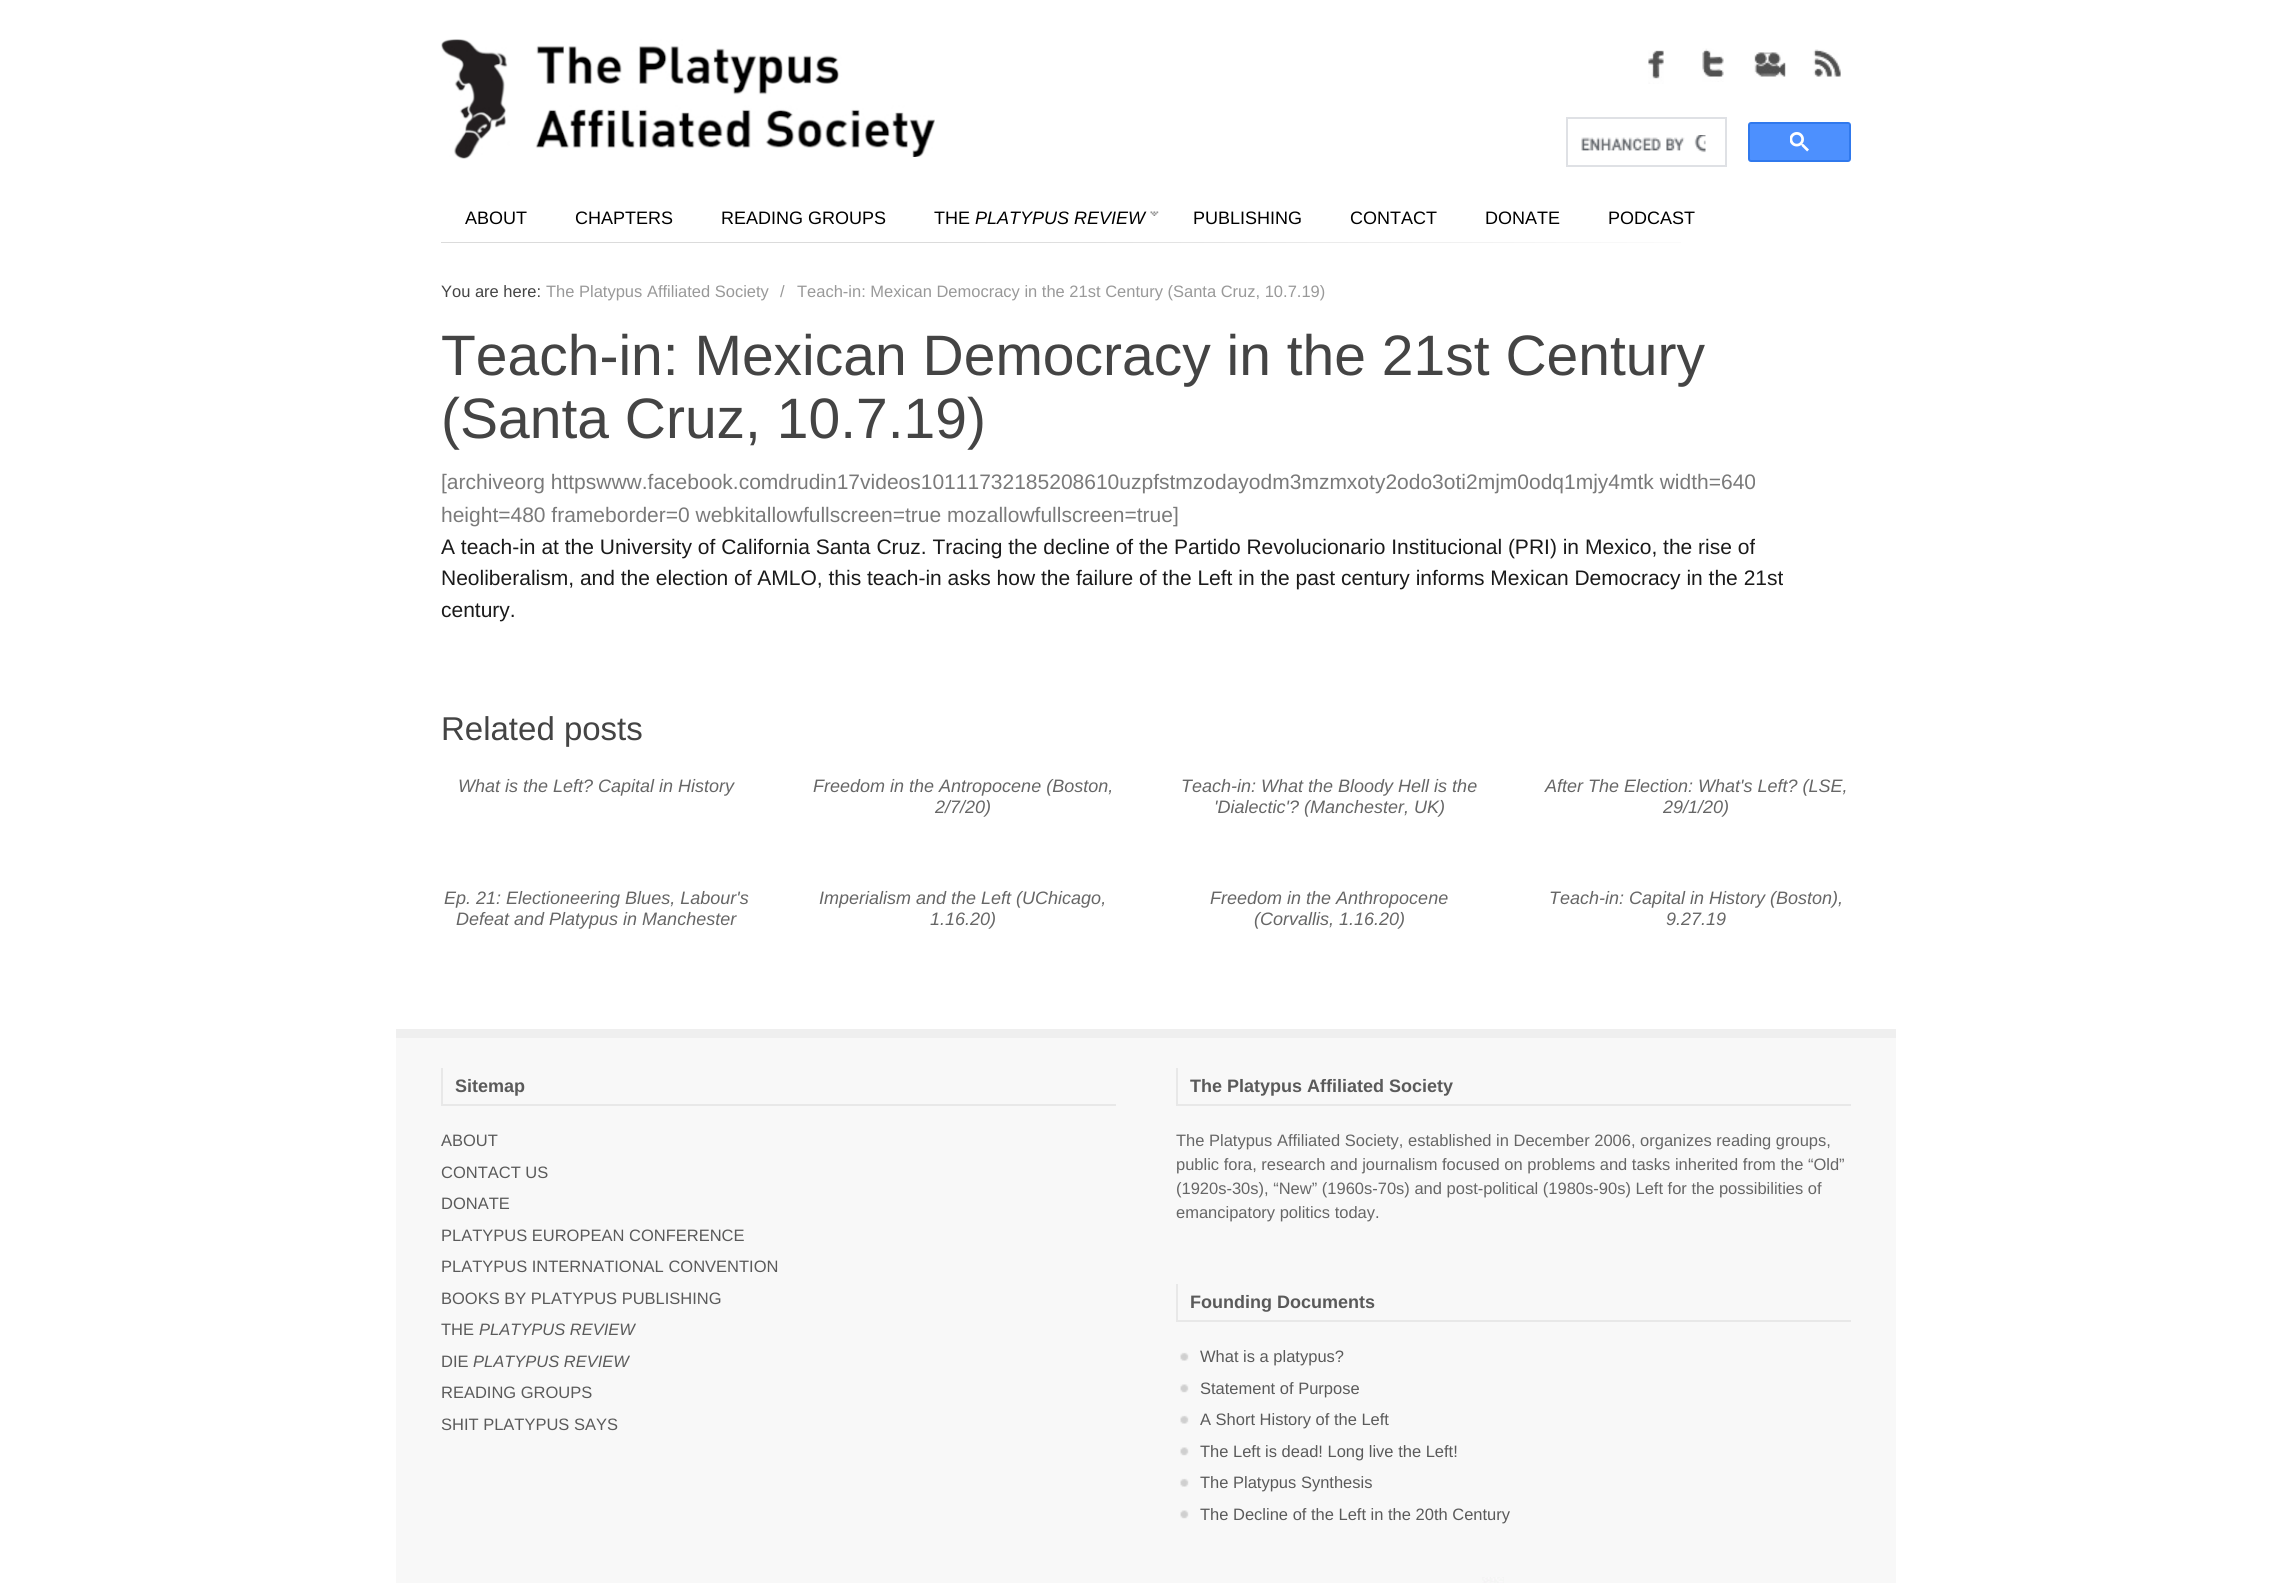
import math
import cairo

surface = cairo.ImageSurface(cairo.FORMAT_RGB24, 2291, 1583)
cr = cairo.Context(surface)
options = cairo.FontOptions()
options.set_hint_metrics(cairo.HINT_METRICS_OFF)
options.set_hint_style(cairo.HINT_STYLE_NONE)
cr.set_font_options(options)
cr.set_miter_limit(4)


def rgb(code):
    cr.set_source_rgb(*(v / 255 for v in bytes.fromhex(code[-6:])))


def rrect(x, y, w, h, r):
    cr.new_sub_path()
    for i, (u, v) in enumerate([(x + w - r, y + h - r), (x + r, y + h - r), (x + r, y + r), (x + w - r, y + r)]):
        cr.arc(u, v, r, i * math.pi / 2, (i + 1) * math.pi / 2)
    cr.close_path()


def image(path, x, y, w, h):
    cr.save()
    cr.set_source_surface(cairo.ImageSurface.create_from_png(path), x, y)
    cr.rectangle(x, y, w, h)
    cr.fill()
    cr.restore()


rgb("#ffffff")
cr.paint()
image("img/1.png", 441, 39, 494, 120)
image("img/2.png", 1648, 50, 16, 34)
image("img/3.png", 1702, 48, 22, 34)
image("img/4.png", 1754, 52, 32, 25)
image("img/5.png", 1813, 49, 28, 28)
cr.rectangle(1567, 118, 159, 48)
rgb("#dfe1e5")
cr.stroke()
image("img/6.png", 1581, 135, 125, 18)
rgb("#4d90fe")
rrect(1749, 123, 101, 38, 2)
cr.fill_preserve()
rgb("#3079ed")
cr.stroke()
image("img/7.png", 1790, 132, 19, 20)
image("img/8.png", 441, 242, 1240, 1)
image("img/9.png", 1150, 211, 9, 5)
for x, y, w, h, color in [
    (396, 1038, 1500, 545, "#f8f8f8"),
    (396, 1029, 1500, 9, "#efefef"),
    (441, 1104, 675, 2, "#e8e8e8"),
    (441, 1068, 2, 38, "#e8e8e8"),
    (1176, 1104, 675, 2, "#e8e8e8"),
    (1176, 1068, 2, 38, "#e8e8e8"),
    (1176, 1320, 675, 2, "#e8e8e8"),
    (1176, 1284, 2, 38, "#e8e8e8"),
]:
    rgb(color)
    cr.rectangle(x, y, w, h)
    cr.fill()
image("img/10.png", 1180, 1352, 9, 9)
image("img/11.png", 1180, 1384, 9, 9)
image("img/10.png", 1180, 1415, 9, 9)
image("img/11.png", 1180, 1447, 9, 9)
image("img/10.png", 1180, 1478, 9, 9)
image("img/11.png", 1180, 1510, 9, 9)
image("img/12.png", 1482, 1577, 22, 6)
cr.select_font_face("Liberation Sans")
cr.set_font_size(18)
rgb("#000000")
for x, y, s in [
    (465, 224, "ABOUT"),
    (575, 224, "CHAPTERS"),
    (721, 224, "READING GROUPS"),
    (934, 224, "THE"),
]:
    cr.move_to(x, y)
    cr.show_text(s)
cr.select_font_face("Liberation Sans", cairo.FONT_SLANT_ITALIC)
cr.move_to(975, 224)
cr.show_text("PLATYPUS REVIEW")
cr.select_font_face("Liberation Sans")
for x, y, s in [
    (1193, 224, "PUBLISHING"),
    (1350, 224, "CONTACT"),
    (1485, 224, "DONATE"),
    (1608, 224, "PODCAST"),
]:
    cr.move_to(x, y)
    cr.show_text(s)
cr.set_font_size(16.5)
rgb("#444444")
cr.move_to(441, 297)
cr.show_text("You are here:")
rgb("#999999")
for x, y, s in [
    (546, 297, "The Platypus Affiliated Society"),
    (780, 297, "/"),
    (797, 297, "Teach-in: Mexican Democracy in the 21st Century (Santa Cruz, 10.7.19)"),
]:
    cr.move_to(x, y)
    cr.show_text(s)
cr.set_font_size(57)
rgb("#444444")
cr.move_to(441, 375)
cr.show_text("Teach-in: Mexican Democracy in the 21st Century")
cr.move_to(441, 438)
cr.show_text("(Santa Cruz, 10.7.19)")
cr.set_font_size(21)
rgb("#7a7a7a")
cr.move_to(441, 489)
cr.show_text("[archiveorg httpswww.facebook.comdrudin17videos10111732185208610uzpfstmzodayodm3mzmxoty2odo3oti2mjm0odq1mjy4mtk width=640")
cr.move_to(441, 522)
cr.show_text("height=480 frameborder=0 webkitallowfullscreen=true mozallowfullscreen=true]")
rgb("#1a1a1a")
for x, y, s in [
    (441, 554, "A teach-in at the University of California Santa Cruz. Tracing the decline of the Partido Revolucionario Institucional (PRI) in Mexico, the rise of"),
    (441, 585, "Neoliberalism, and the election of AMLO, this teach-in asks how the failure of the Left in the past century informs Mexican Democracy in the 21st"),
    (441, 617, "century."),
]:
    cr.move_to(x, y)
    cr.show_text(s)
cr.set_font_size(33)
rgb("#444444")
cr.move_to(441, 740)
cr.show_text("Related posts")
cr.select_font_face("Liberation Sans", cairo.FONT_SLANT_ITALIC)
cr.set_font_size(18)
rgb("#666666")
for x, y, s in [
    (458, 792, "What is the Left? Capital in History"),
    (813, 792, "Freedom in the Antropocene (Boston,"),
    (935, 813, "2/7/20)"),
    (1181, 792, "Teach-in: What the Bloody Hell is the"),
    (1214, 813, "'Dialectic'? (Manchester, UK)"),
    (1545, 792, "After The Election: What's Left? (LSE,"),
    (1663, 813, "29/1/20)"),
    (444, 904, "Ep. 21: Electioneering Blues, Labour's"),
    (456, 925, "Defeat and Platypus in Manchester"),
    (819, 904, "Imperialism and the Left (UChicago,"),
    (930, 925, "1.16.20)"),
    (1210, 904, "Freedom in the Anthropocene"),
    (1254, 925, "(Corvallis, 1.16.20)"),
    (1549, 904, "Teach-in: Capital in History (Boston),"),
    (1666, 925, "9.27.19"),
]:
    cr.move_to(x, y)
    cr.show_text(s)
cr.select_font_face("Liberation Sans", cairo.FONT_SLANT_NORMAL, cairo.FONT_WEIGHT_BOLD)
rgb("#5a5a5a")
cr.move_to(455, 1092)
cr.show_text("Sitemap")
cr.select_font_face("Liberation Sans")
cr.set_font_size(16.5)
for x, y, s in [
    (441, 1146, "ABOUT"),
    (441, 1178, "CONTACT US"),
    (441, 1209, "DONATE"),
    (441, 1241, "PLATYPUS EUROPEAN CONFERENCE"),
    (441, 1272, "PLATYPUS INTERNATIONAL CONVENTION"),
    (441, 1304, "BOOKS BY PLATYPUS PUBLISHING"),
    (441, 1335, "THE"),
]:
    cr.move_to(x, y)
    cr.show_text(s)
cr.select_font_face("Liberation Sans", cairo.FONT_SLANT_ITALIC)
cr.move_to(479, 1335)
cr.show_text("PLATYPUS REVIEW")
cr.select_font_face("Liberation Sans")
cr.move_to(441, 1367)
cr.show_text("DIE")
cr.select_font_face("Liberation Sans", cairo.FONT_SLANT_ITALIC)
cr.move_to(473, 1367)
cr.show_text("PLATYPUS REVIEW")
cr.select_font_face("Liberation Sans")
cr.move_to(441, 1398)
cr.show_text("READING GROUPS")
cr.move_to(441, 1430)
cr.show_text("SHIT PLATYPUS SAYS")
cr.select_font_face("Liberation Sans", cairo.FONT_SLANT_NORMAL, cairo.FONT_WEIGHT_BOLD)
cr.set_font_size(18)
cr.move_to(1190, 1092)
cr.show_text("The Platypus Affiliated Society")
cr.select_font_face("Liberation Sans")
cr.set_font_size(16.5)
rgb("#666666")
for x, y, s in [
    (1176, 1146, "The Platypus Affiliated Society, established in December 2006, organizes reading groups,"),
    (1176, 1170, "public fora, research and journalism focused on problems and tasks inherited from the “Old”"),
    (1176, 1194, "(1920s-30s), “New” (1960s-70s) and post-political (1980s-90s) Left for the possibilities of"),
    (1176, 1218, "emancipatory politics today."),
]:
    cr.move_to(x, y)
    cr.show_text(s)
cr.select_font_face("Liberation Sans", cairo.FONT_SLANT_NORMAL, cairo.FONT_WEIGHT_BOLD)
cr.set_font_size(18)
rgb("#5a5a5a")
cr.move_to(1190, 1308)
cr.show_text("Founding Documents")
cr.select_font_face("Liberation Sans")
cr.set_font_size(16.5)
for x, y, s in [
    (1200, 1362, "What is a platypus?"),
    (1200, 1394, "Statement of Purpose"),
    (1200, 1425, "A Short History of the Left"),
    (1200, 1457, "The Left is dead! Long live the Left!"),
    (1200, 1488, "The Platypus Synthesis"),
    (1200, 1520, "The Decline of the Left in the 20th Century"),
]:
    cr.move_to(x, y)
    cr.show_text(s)
surface.write_to_png("page.png")
